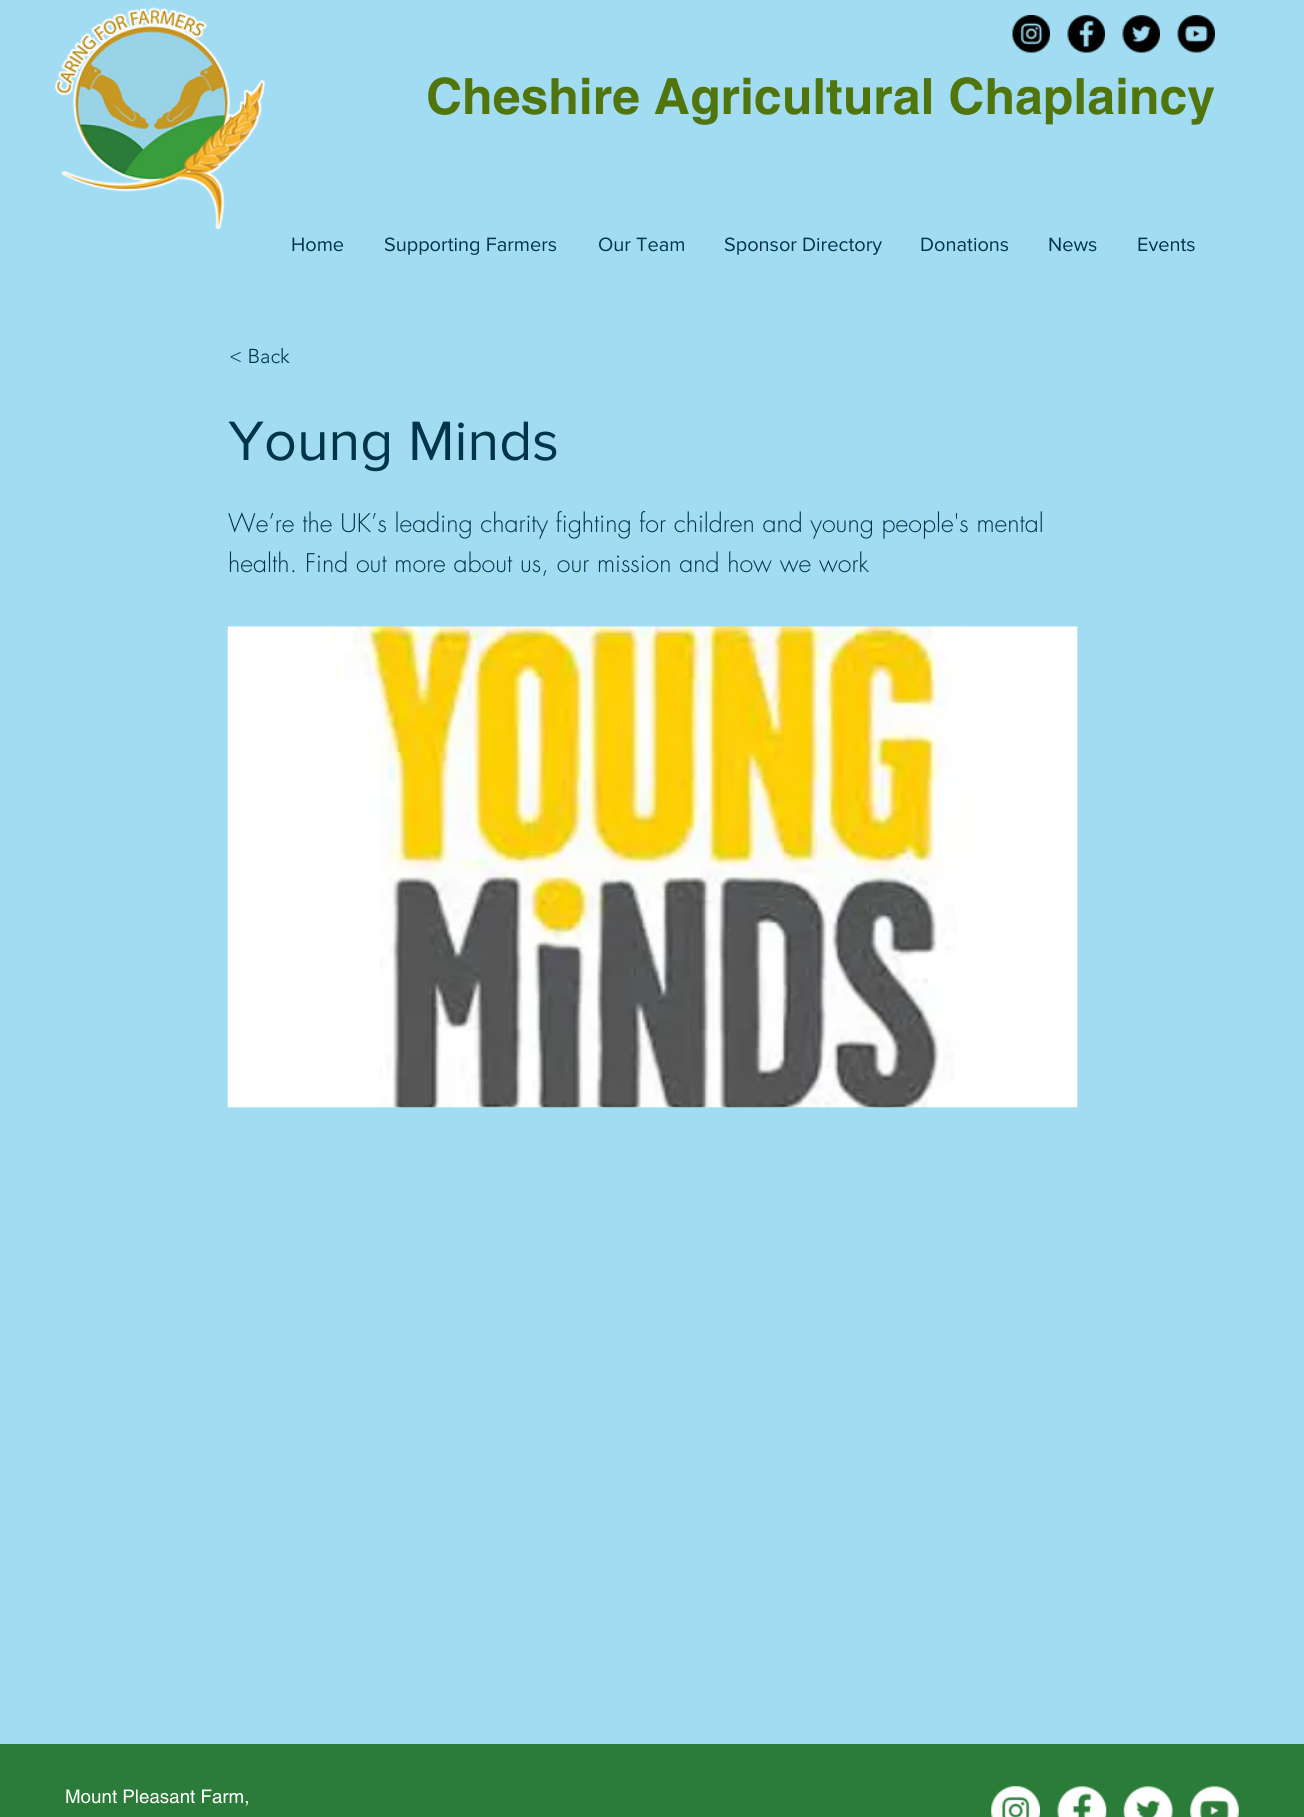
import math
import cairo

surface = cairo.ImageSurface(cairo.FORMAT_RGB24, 1304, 1817)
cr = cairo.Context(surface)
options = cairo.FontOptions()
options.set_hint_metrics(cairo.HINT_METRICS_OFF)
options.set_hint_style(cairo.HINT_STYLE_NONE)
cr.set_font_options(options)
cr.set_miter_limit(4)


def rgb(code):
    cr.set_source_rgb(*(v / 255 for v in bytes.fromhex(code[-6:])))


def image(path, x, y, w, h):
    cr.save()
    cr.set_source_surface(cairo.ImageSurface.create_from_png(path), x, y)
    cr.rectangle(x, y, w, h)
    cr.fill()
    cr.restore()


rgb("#a1dcf2")
cr.paint()
image("img/1.png", 54, 7, 212, 223)
image("img/2.png", 1012, 15, 38, 38)
image("img/3.png", 1067, 15, 38, 38)
image("img/4.png", 1122, 15, 38, 38)
image("img/5.png", 1177, 15, 38, 38)
image("img/6.png", 227, 626, 851, 482)
rgb("#2b7c38")
cr.rectangle(0, 1744, 1304, 73)
cr.fill()
image("img/7.png", 991, 1786, 49, 31)
image("img/8.png", 1057, 1786, 50, 31)
image("img/9.png", 1123, 1786, 50, 31)
image("img/10.png", 1190, 1786, 49, 31)
cr.select_font_face("helvetica", cairo.FONT_SLANT_NORMAL, cairo.FONT_WEIGHT_BOLD)
cr.set_font_size(50)
rgb("#50750c")
cr.move_to(426, 114)
cr.show_text("Cheshire Agricultural Chaplaincy")
cr.select_font_face("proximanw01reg")
cr.set_font_size(20)
rgb("#003448")
for x, y, s in [
    (291, 251, "Home"),
    (384, 251, "Supporting Farmers"),
    (598, 251, "Our Team"),
    (724, 251, "Sponsor Directory"),
    (920, 251, "Donations"),
    (1048, 251, "News"),
    (1137, 251, "Events"),
]:
    cr.move_to(x, y)
    cr.show_text(s)
cr.select_font_face("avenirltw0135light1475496 Light")
cr.move_to(229, 363)
cr.show_text("< Back")
cr.select_font_face("proximanw01reg")
cr.set_font_size(57.5)
cr.move_to(228, 460)
cr.show_text("Young Minds")
cr.select_font_face("futura Light")
cr.set_font_size(25)
cr.move_to(228, 532)
cr.show_text("We’re the UK’s leading charity fighting for children and young people's mental")
cr.move_to(228, 572)
cr.show_text("health. Find out more about us, our mission and how we work")
cr.select_font_face("helvetica")
cr.set_font_size(18.75)
rgb("#ffffff")
cr.move_to(65, 1803)
cr.show_text("Mount Pleasant Farm,")
surface.write_to_png("page.png")
